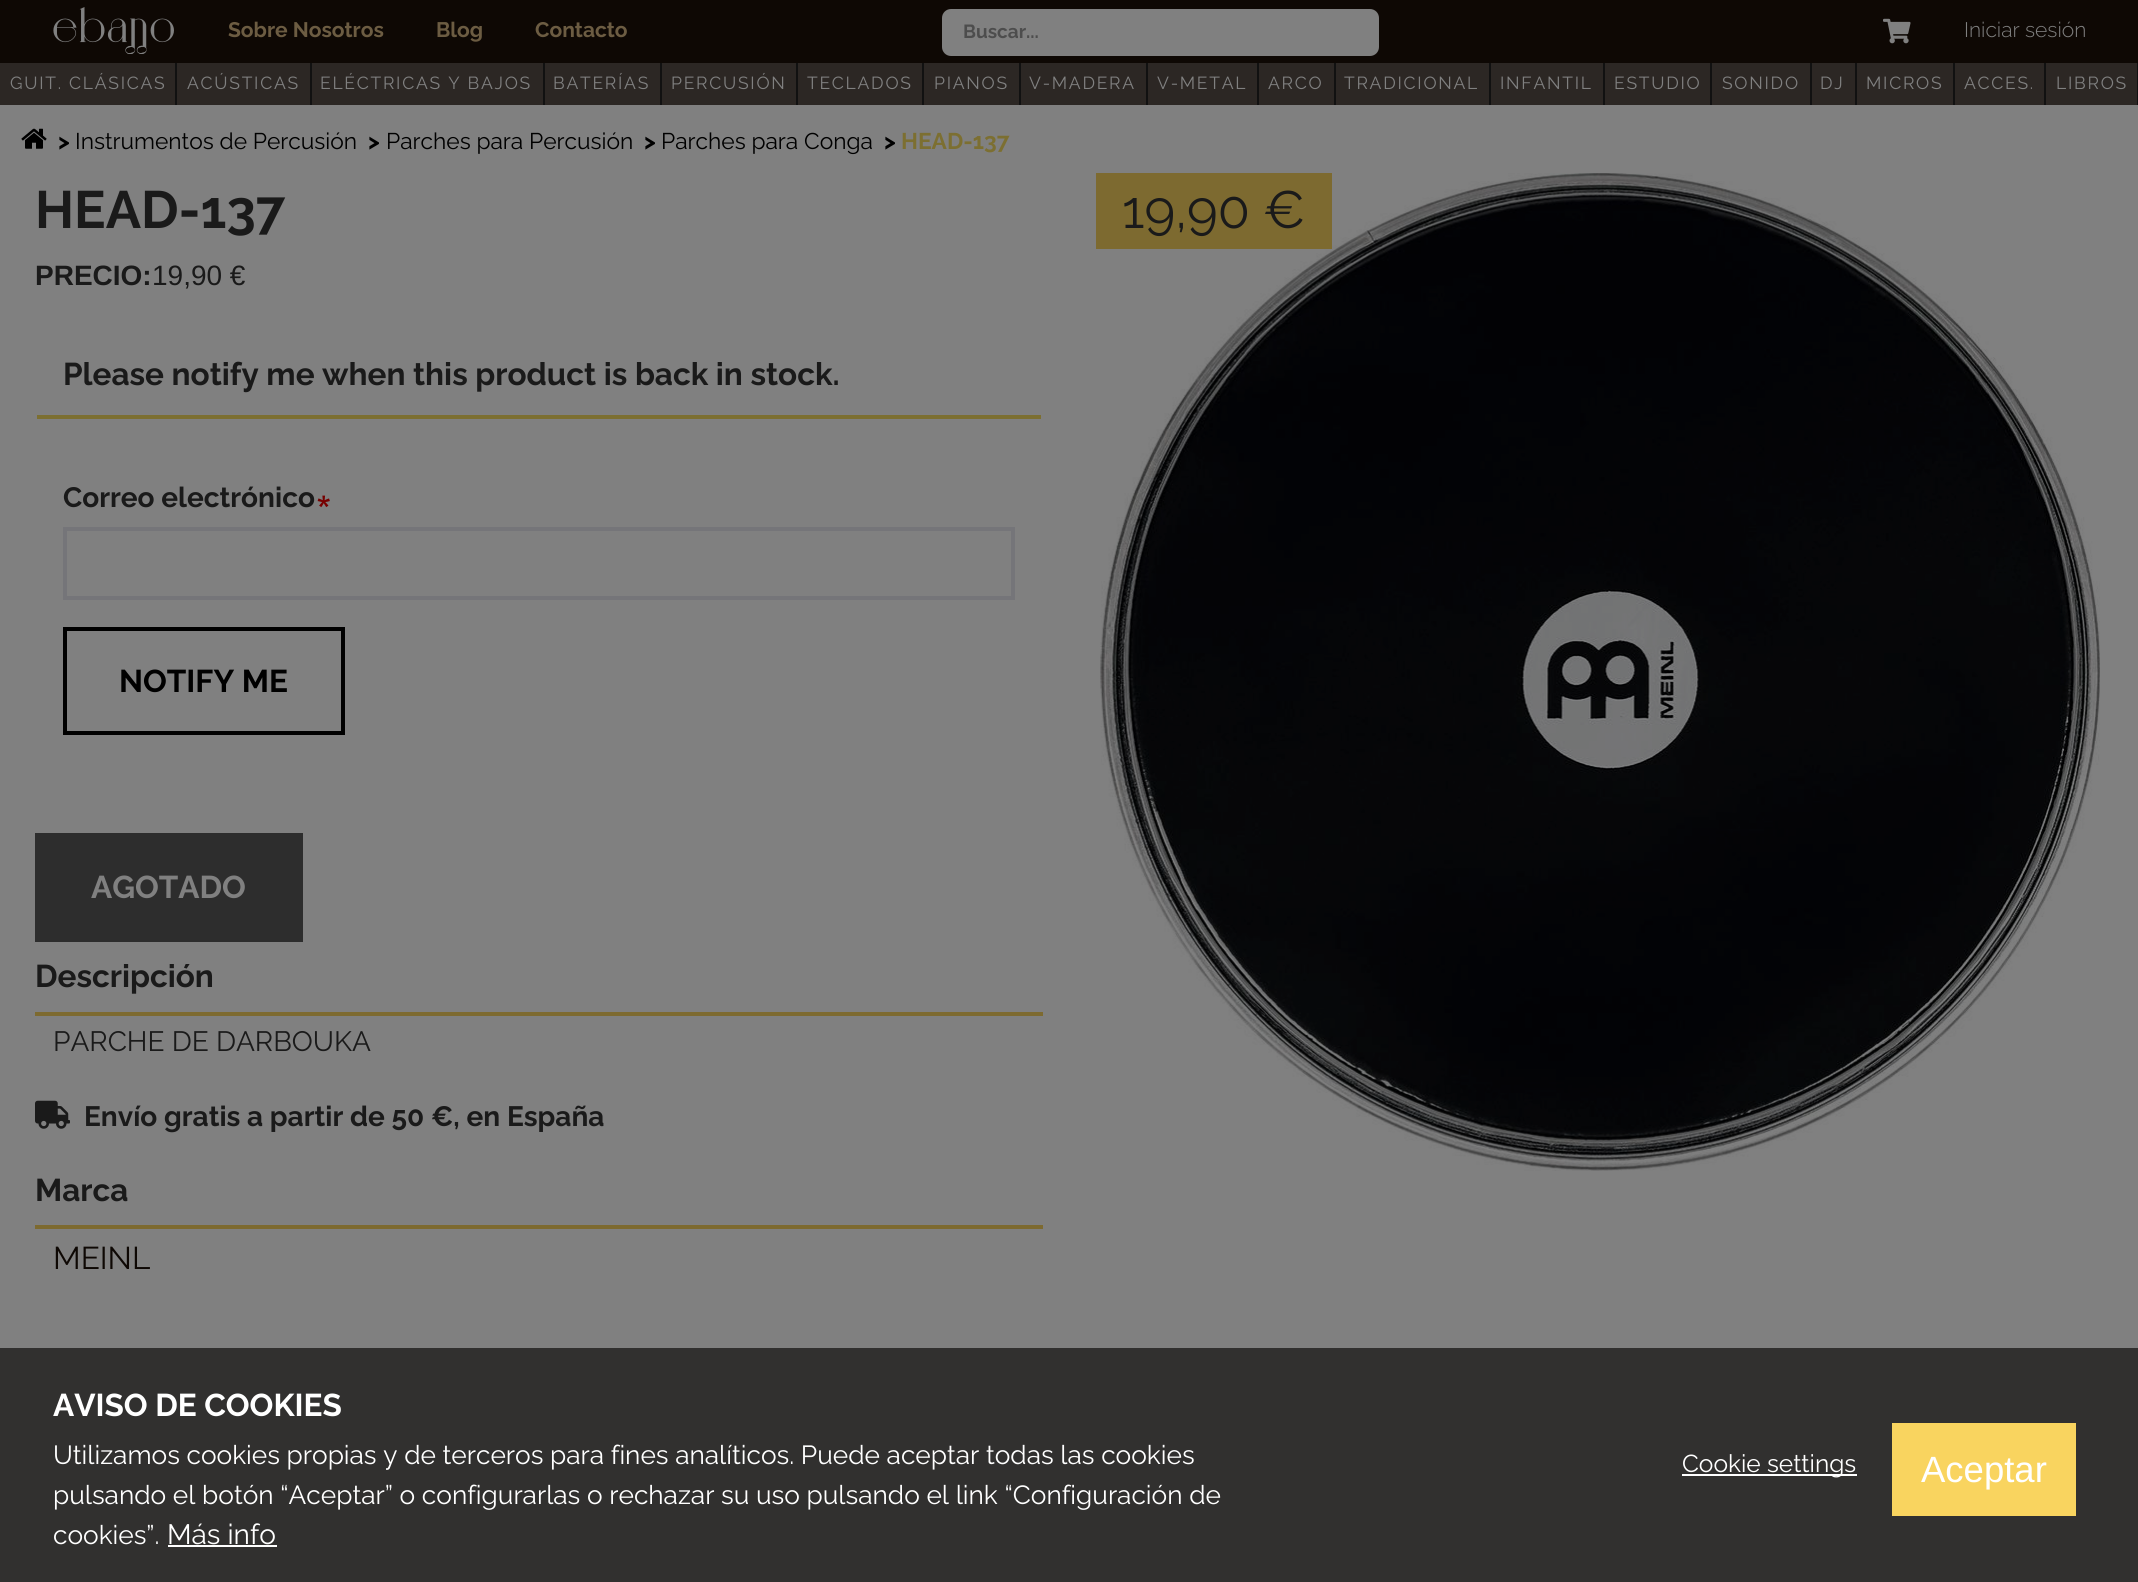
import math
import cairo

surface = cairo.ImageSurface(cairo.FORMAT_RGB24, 2138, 1582)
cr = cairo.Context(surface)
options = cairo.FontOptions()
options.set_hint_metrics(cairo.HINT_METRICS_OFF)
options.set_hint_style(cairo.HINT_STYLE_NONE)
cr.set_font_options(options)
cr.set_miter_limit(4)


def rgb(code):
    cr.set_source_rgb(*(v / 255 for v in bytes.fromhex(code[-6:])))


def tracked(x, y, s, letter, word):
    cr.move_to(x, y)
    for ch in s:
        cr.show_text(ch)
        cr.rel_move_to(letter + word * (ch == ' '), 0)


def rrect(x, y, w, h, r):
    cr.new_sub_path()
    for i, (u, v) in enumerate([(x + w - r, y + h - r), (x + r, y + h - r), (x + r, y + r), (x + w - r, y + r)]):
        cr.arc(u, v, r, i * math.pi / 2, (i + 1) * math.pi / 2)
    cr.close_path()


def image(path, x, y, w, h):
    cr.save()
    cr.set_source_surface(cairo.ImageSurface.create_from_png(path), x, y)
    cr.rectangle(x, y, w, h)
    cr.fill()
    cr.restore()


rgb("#808080")
cr.paint()
rgb("#0e0804")
cr.rectangle(0, 0, 2138, 63)
cr.fill()
image("img/1.png", 53, 7, 121, 47)
rgb("#808080")
rrect(942, 9, 437, 47, 9)
cr.fill()
image("img/2.png", 1883, 18, 28, 26)
for x, y, w, h, color in [
    (0, 63, 175, 42, "#2c2724"),
    (175, 63, 2, 42, "#111111"),
    (177, 63, 133, 42, "#2c2724"),
    (310, 63, 2, 42, "#111111"),
    (312, 63, 231, 42, "#2c2724"),
    (543, 63, 2, 42, "#111111"),
    (545, 63, 115, 42, "#2c2724"),
    (660, 63, 2, 42, "#111111"),
    (662, 63, 134, 42, "#2c2724"),
    (796, 63, 2, 42, "#111111"),
    (798, 63, 124, 42, "#2c2724"),
    (922, 63, 2, 42, "#111111"),
    (924, 63, 95, 42, "#2c2724"),
    (1019, 63, 2, 42, "#111111"),
    (1021, 63, 125, 42, "#2c2724"),
    (1146, 63, 2, 42, "#111111"),
    (1148, 63, 109, 42, "#2c2724"),
    (1257, 63, 2, 42, "#111111"),
    (1259, 63, 75, 42, "#2c2724"),
    (1334, 63, 2, 42, "#111111"),
    (1336, 63, 153, 42, "#2c2724"),
    (1489, 63, 2, 42, "#111111"),
    (1491, 63, 112, 42, "#2c2724"),
    (1603, 63, 2, 42, "#111111"),
    (1605, 63, 105, 42, "#2c2724"),
    (1710, 63, 2, 42, "#111111"),
    (1712, 63, 98, 42, "#2c2724"),
    (1810, 63, 2, 42, "#111111"),
    (1812, 63, 43, 42, "#2c2724"),
    (1855, 63, 2, 42, "#111111"),
    (1857, 63, 96, 42, "#2c2724"),
    (1953, 63, 2, 42, "#111111"),
    (1955, 63, 89, 42, "#2c2724"),
    (2044, 63, 2, 42, "#111111"),
    (2046, 63, 91, 42, "#2c2724"),
    (2137, 63, 1, 42, "#111111"),
]:
    rgb(color)
    cr.rectangle(x, y, w, h)
    cr.fill()
image("img/3.png", 21, 128, 26, 21)
rgb("#7c6f31")
cr.rectangle(37, 415, 1004, 4)
cr.fill()
image("img/4.png", 317, 495, 13, 13)
cr.rectangle(65, 529, 948, 69)
rgb("#757579")
cr.set_line_width(4)
cr.stroke()
cr.rectangle(65, 629, 278, 104)
rgb("#000000")
cr.stroke()
rgb("#2d2d2d")
cr.rectangle(35, 833, 268, 109)
cr.fill()
rgb("#7d6a30")
cr.rectangle(35, 1012, 1008, 4)
cr.fill()
image("img/5.png", 35, 1100, 35, 29)
cr.rectangle(35, 1225, 1008, 4)
cr.fill()
image("img/6.png", 1100, 173, 1000, 998)
image("img/7.png", 1100, 173, 527, 998)
image("img/8.png", 1100, 173, 523, 516)
for x, y, w, h, color in [
    (1096, 173, 236, 76, "#7d6a30"),
    (0, 1348, 2138, 234, "#31302f"),
    (168, 1545, 109, 2, "#ffffff"),
    (1682, 1474, 175, 2, "#ffffff"),
    (1892, 1423, 184, 93, "#f9d45f"),
]:
    rgb(color)
    cr.rectangle(x, y, w, h)
    cr.fill()
cr.select_font_face("Raleway", cairo.FONT_SLANT_NORMAL, cairo.FONT_WEIGHT_BOLD)
cr.set_font_size(21)
rgb("#6c5c42")
for x, y, s in [
    (228, 37, "Sobre Nosotros"),
    (436, 37, "Blog"),
    (535, 37, "Contacto"),
]:
    cr.move_to(x, y)
    cr.show_text(s)
cr.set_font_size(19)
rgb("#4d4d4d")
cr.move_to(963, 38)
cr.show_text("Buscar...")
cr.select_font_face("Raleway Light")
cr.set_font_size(21)
rgb("#808080")
cr.move_to(1964, 37)
cr.show_text("Iniciar sesión")
cr.select_font_face("Raleway")
cr.set_font_size(17.5)
for x, y, s in [
    (10, 89, "GUIT. CLÁSICAS"),
    (187, 89, "ACÚSTICAS"),
    (320, 89, "ELÉCTRICAS Y BAJOS"),
    (553, 89, "BATERÍAS"),
    (671, 89, "PERCUSIÓN"),
    (807, 89, "TECLADOS"),
    (934, 89, "PIANOS"),
    (1029, 89, "V-MADERA"),
    (1157, 89, "V-METAL"),
    (1268, 89, "ARCO"),
    (1344, 89, "TRADICIONAL"),
    (1500, 89, "INFANTIL"),
    (1614, 89, "ESTUDIO"),
    (1722, 89, "SONIDO"),
    (1820, 89, "DJ"),
    (1866, 89, "MICROS"),
    (1964, 89, "ACCES."),
    (2056, 89, "LIBROS"),
]:
    tracked(x, y, s, 1.75, 0)
cr.select_font_face("Raleway", cairo.FONT_SLANT_NORMAL, cairo.FONT_WEIGHT_BOLD)
cr.set_font_size(22.75)
rgb("#000000")
cr.move_to(58, 149)
cr.show_text(">")
cr.select_font_face("Raleway")
cr.move_to(75, 149)
cr.show_text("Instrumentos de Percusión")
cr.select_font_face("Raleway", cairo.FONT_SLANT_NORMAL, cairo.FONT_WEIGHT_BOLD)
cr.move_to(368, 149)
cr.show_text(">")
cr.select_font_face("Raleway")
cr.move_to(386, 149)
cr.show_text("Parches para Percusión")
cr.select_font_face("Raleway", cairo.FONT_SLANT_NORMAL, cairo.FONT_WEIGHT_BOLD)
cr.move_to(644, 149)
cr.show_text(">")
cr.select_font_face("Raleway")
cr.move_to(661, 149)
cr.show_text("Parches para Conga")
cr.select_font_face("Raleway", cairo.FONT_SLANT_NORMAL, cairo.FONT_WEIGHT_BOLD)
cr.move_to(884, 149)
cr.show_text(">")
rgb("#7c6f31")
cr.move_to(901, 149)
cr.show_text("HEAD-137")
cr.set_font_size(52.5)
rgb("#1a1a1a")
cr.move_to(35, 228)
cr.show_text("HEAD-137")
cr.select_font_face("Liberation Sans", cairo.FONT_SLANT_NORMAL, cairo.FONT_WEIGHT_BOLD)
cr.set_font_size(28)
cr.move_to(35, 285)
cr.show_text("PRECIO:")
cr.select_font_face("Liberation Sans")
cr.move_to(152, 285)
cr.show_text("19,90 €")
cr.select_font_face("Raleway", cairo.FONT_SLANT_NORMAL, cairo.FONT_WEIGHT_BOLD)
cr.set_font_size(31.5)
cr.move_to(63, 385)
cr.show_text("Please notify me when this product is back in stock.")
cr.set_font_size(28)
cr.move_to(63, 507)
cr.show_text("Correo electrónico")
cr.set_font_size(31.5)
rgb("#000000")
cr.move_to(119, 692)
cr.show_text("NOTIFY ME")
rgb("#808080")
cr.move_to(91, 898)
cr.show_text("AGOTADO")
rgb("#1a1a1a")
cr.move_to(35, 987)
cr.show_text("Descripción")
cr.select_font_face("Raleway")
cr.set_font_size(28)
cr.move_to(53, 1051)
cr.show_text("PARCHE DE DARBOUKA")
cr.select_font_face("Raleway", cairo.FONT_SLANT_NORMAL, cairo.FONT_WEIGHT_BOLD)
cr.move_to(84, 1126)
cr.show_text("Envío gratis a partir de 50 €, en España")
cr.set_font_size(31.5)
cr.move_to(35, 1201)
cr.show_text("Marca")
cr.select_font_face("Raleway")
rgb("#0e0804")
cr.move_to(53, 1269)
cr.show_text("MEINL")
cr.set_font_size(52.5)
rgb("#1a1a1a")
cr.move_to(1122, 228)
cr.show_text("19,90 €")
cr.select_font_face("Raleway", cairo.FONT_SLANT_NORMAL, cairo.FONT_WEIGHT_BOLD)
cr.set_font_size(31.5)
rgb("#ffffff")
cr.move_to(53, 1416)
cr.show_text("AVISO DE COOKIES")
cr.select_font_face("Raleway")
cr.set_font_size(26.25)
for x, y, s in [
    (53, 1464, "Utilizamos cookies propias y de terceros para fines analíticos. Puede aceptar todas las cookies"),
    (53, 1504, "pulsando el botón “Aceptar” o configurarlas o rechazar su uso pulsando el link “Configuración de"),
    (53, 1544, "cookies”."),
]:
    cr.move_to(x, y)
    cr.show_text(s)
cr.set_font_size(28)
cr.move_to(167, 1544)
cr.show_text("Más info")
cr.set_font_size(24.5)
cr.move_to(1682, 1472)
cr.show_text("Cookie settings")
cr.select_font_face("Liberation Sans")
cr.set_font_size(36.5)
cr.move_to(1921, 1482)
cr.show_text("Aceptar")
surface.write_to_png("page.png")
